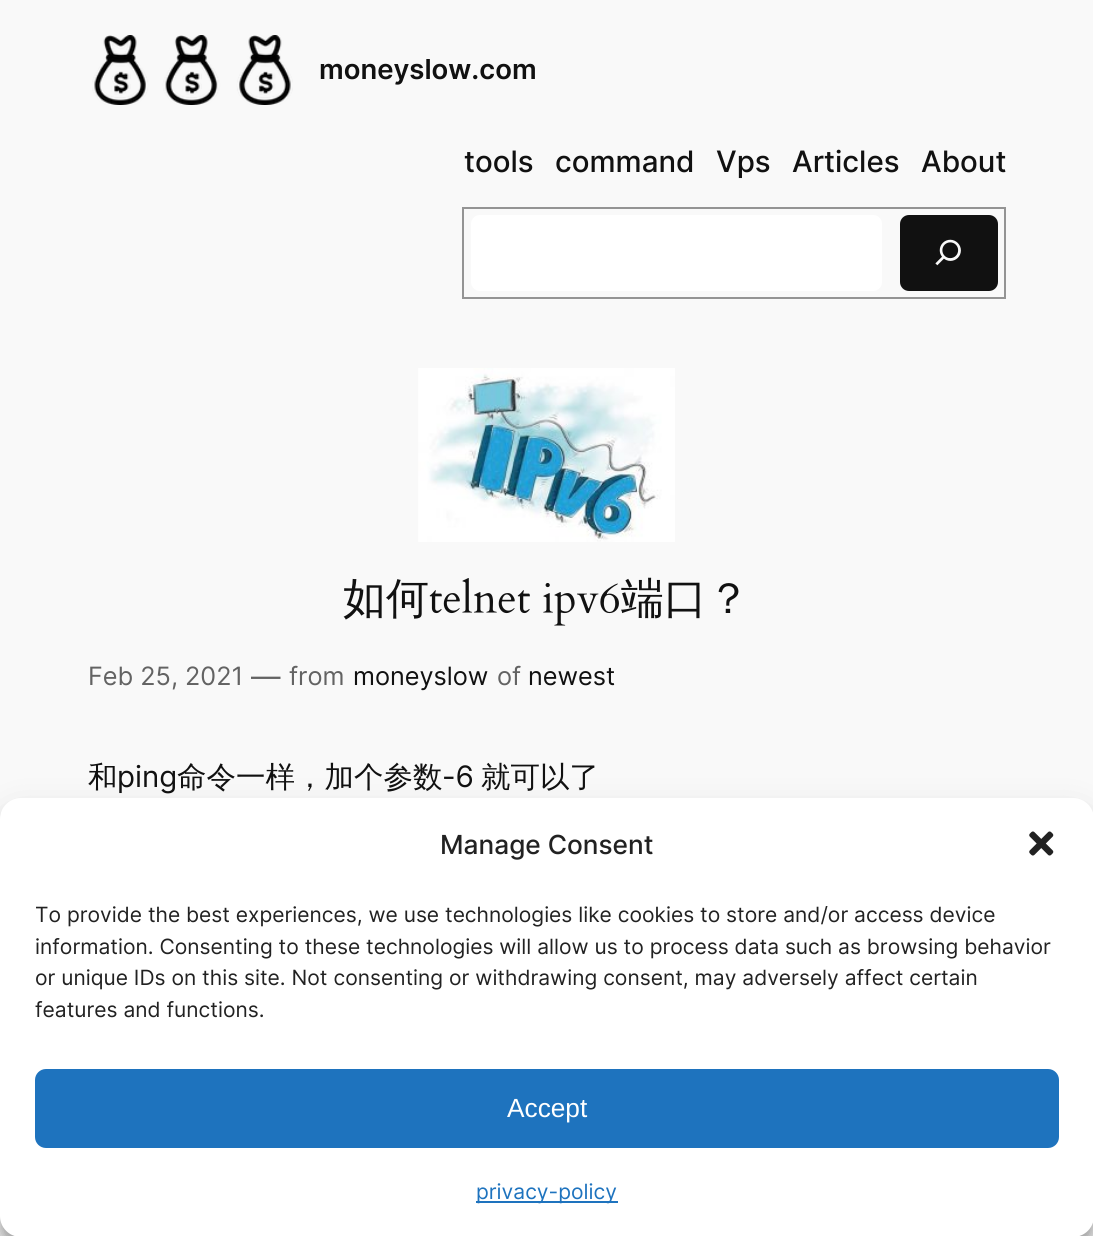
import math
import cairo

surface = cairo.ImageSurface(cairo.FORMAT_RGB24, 1093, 1236)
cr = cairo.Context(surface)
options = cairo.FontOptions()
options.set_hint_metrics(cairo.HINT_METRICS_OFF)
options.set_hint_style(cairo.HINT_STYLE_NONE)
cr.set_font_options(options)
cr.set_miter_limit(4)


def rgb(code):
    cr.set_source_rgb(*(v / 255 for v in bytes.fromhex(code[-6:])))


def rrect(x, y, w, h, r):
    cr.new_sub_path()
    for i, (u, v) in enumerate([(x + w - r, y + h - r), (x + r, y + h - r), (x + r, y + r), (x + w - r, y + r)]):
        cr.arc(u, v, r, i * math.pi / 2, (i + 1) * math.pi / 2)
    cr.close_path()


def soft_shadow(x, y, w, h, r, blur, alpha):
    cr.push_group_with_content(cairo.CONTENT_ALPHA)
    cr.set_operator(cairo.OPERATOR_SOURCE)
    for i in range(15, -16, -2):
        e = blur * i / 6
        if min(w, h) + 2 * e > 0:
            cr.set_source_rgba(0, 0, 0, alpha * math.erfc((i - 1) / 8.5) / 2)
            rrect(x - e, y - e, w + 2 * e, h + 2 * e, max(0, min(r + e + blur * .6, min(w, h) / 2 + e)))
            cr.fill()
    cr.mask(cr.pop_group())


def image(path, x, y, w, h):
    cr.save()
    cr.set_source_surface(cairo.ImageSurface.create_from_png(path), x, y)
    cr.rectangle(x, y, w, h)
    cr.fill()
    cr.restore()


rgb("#f9f9f9")
cr.paint()
image("img/1.png", 92, 35, 201, 70)
cr.rectangle(463, 208, 542, 90)
rgb("#949494")
cr.stroke()
rgb("#ffffff")
rrect(471, 215, 411, 76, 9)
cr.fill()
rgb("#111111")
rrect(900, 215, 98, 76, 9)
cr.fill()
image("img/2.png", 935, 239, 26, 27)
image("img/3.png", 418, 368, 257, 174)
image("img/4.png", 429, 578, 190, 48)
rgb("#000000")
soft_shadow(0, 809, 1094, 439, 21, 5, 0.23)
soft_shadow(0, 816, 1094, 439, 21, 17.5, 0.19)
rgb("#ffffff")
rrect(0, 798, 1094, 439, 21)
cr.fill()
image("img/5.png", 1029, 831, 25, 25)
rgb("#1e73be")
rrect(36, 1070, 1022, 77, 10)
cr.fill_preserve()
cr.stroke()
cr.rectangle(476, 1201, 142, 2)
cr.fill()
cr.select_font_face("Inter SemiBold")
cr.set_font_size(27.5)
rgb("#111111")
cr.move_to(319, 79)
cr.show_text("moneyslow.com")
cr.select_font_face("Inter Medium")
cr.set_font_size(29.5)
for x, y, s in [
    (464, 172, "tools"),
    (555, 172, "command"),
    (716, 172, "Vps"),
    (792, 172, "Articles"),
    (921, 172, "About"),
]:
    cr.move_to(x, y)
    cr.show_text(s)
cr.select_font_face("WenQuanYi Zen Hei Medium")
cr.set_font_size(43)
cr.move_to(343, 613)
cr.show_text("如何")
cr.move_to(621, 613)
cr.show_text("端口？")
cr.select_font_face("Inter")
cr.set_font_size(25.25)
rgb("#636363")
cr.move_to(88, 685)
cr.show_text("Feb 25, 2021")
cr.set_font_size(29.5)
cr.move_to(251, 687)
cr.show_text("—")
cr.set_font_size(25.25)
cr.move_to(289, 685)
cr.show_text("from")
rgb("#111111")
cr.move_to(353, 685)
cr.show_text("moneyslow")
rgb("#636363")
cr.move_to(497, 685)
cr.show_text("of")
rgb("#111111")
cr.move_to(528, 685)
cr.show_text("newest")
cr.select_font_face("WenQuanYi Zen Hei Medium")
cr.set_font_size(29.5)
cr.move_to(88, 787)
cr.show_text("和")
cr.select_font_face("Inter")
cr.move_to(117, 787)
cr.show_text("ping")
cr.select_font_face("WenQuanYi Zen Hei Medium")
cr.move_to(177, 787)
cr.show_text("命令一样，加个参数")
cr.select_font_face("Inter")
cr.move_to(442, 787)
cr.show_text("-6")
cr.select_font_face("WenQuanYi Zen Hei Medium")
cr.move_to(481, 787)
cr.show_text("就可以了")
cr.select_font_face("Inter Medium")
cr.set_font_size(26.25)
rgb("#222222")
cr.move_to(440, 854)
cr.show_text("Manage Consent")
cr.select_font_face("Inter")
cr.set_font_size(21)
for x, y, s in [
    (35, 922, "To provide the best experiences, we use technologies like cookies to store and/or access device"),
    (35, 954, "information. Consenting to these technologies will allow us to process data such as browsing behavior"),
    (35, 985, "or unique IDs on this site. Not consenting or withdrawing consent, may adversely affect certain"),
    (35, 1017, "features and functions."),
]:
    cr.move_to(x, y)
    cr.show_text(s)
cr.select_font_face("Liberation Sans")
cr.set_font_size(26.25)
rgb("#ffffff")
cr.move_to(507, 1117)
cr.show_text("Accept")
cr.select_font_face("Inter")
cr.set_font_size(21)
rgb("#1e73be")
cr.move_to(476, 1199)
cr.show_text("privacy-policy")
surface.write_to_png("page.png")
